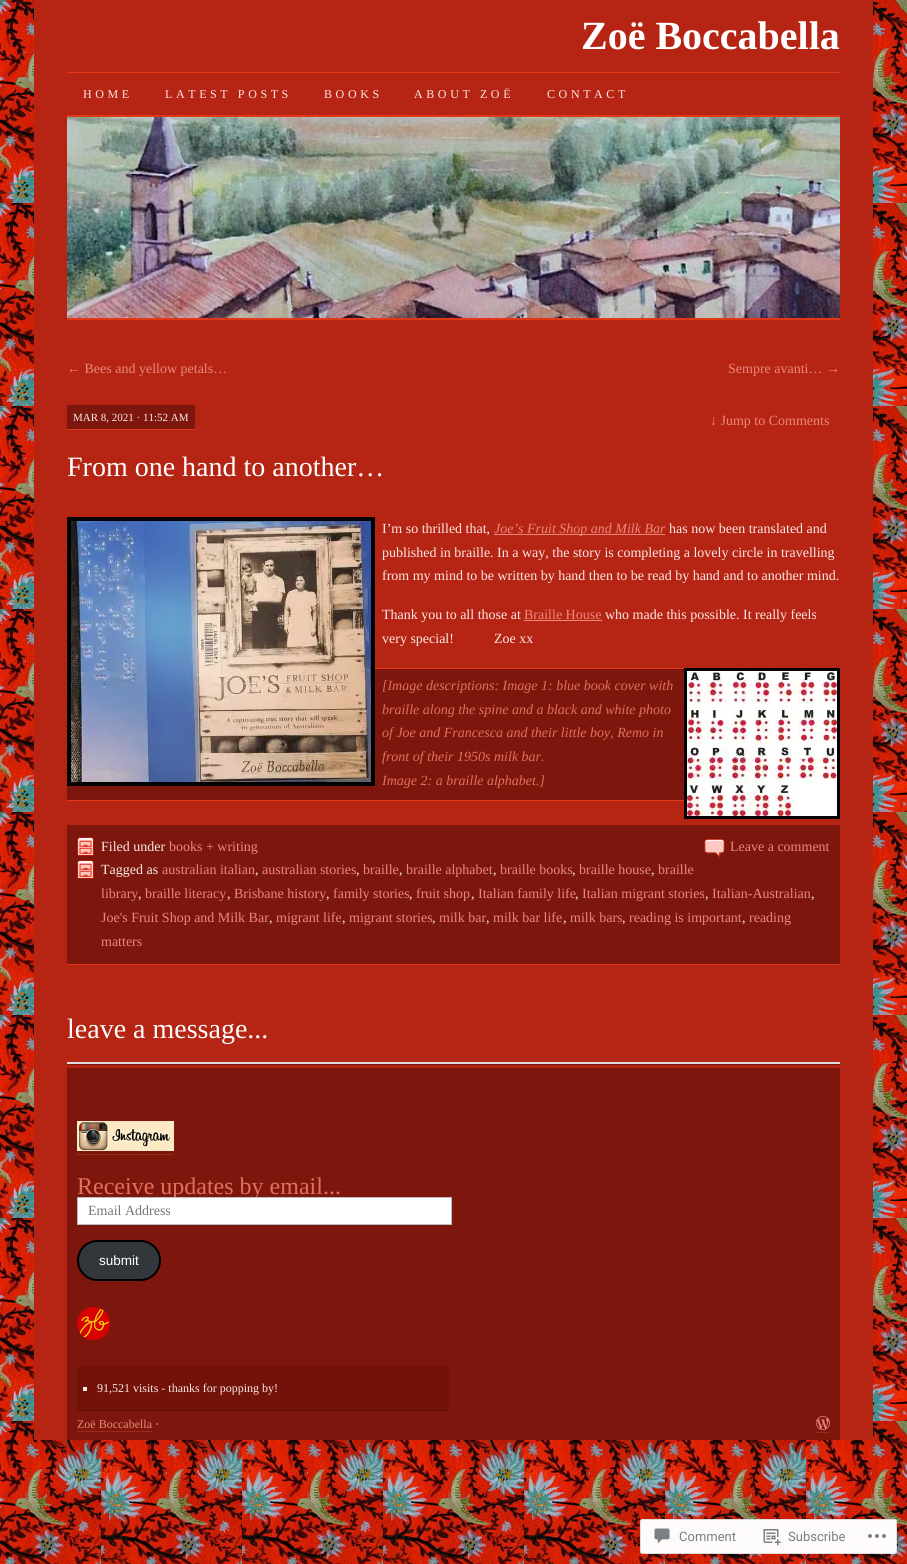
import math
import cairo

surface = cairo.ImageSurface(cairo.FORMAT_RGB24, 907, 1564)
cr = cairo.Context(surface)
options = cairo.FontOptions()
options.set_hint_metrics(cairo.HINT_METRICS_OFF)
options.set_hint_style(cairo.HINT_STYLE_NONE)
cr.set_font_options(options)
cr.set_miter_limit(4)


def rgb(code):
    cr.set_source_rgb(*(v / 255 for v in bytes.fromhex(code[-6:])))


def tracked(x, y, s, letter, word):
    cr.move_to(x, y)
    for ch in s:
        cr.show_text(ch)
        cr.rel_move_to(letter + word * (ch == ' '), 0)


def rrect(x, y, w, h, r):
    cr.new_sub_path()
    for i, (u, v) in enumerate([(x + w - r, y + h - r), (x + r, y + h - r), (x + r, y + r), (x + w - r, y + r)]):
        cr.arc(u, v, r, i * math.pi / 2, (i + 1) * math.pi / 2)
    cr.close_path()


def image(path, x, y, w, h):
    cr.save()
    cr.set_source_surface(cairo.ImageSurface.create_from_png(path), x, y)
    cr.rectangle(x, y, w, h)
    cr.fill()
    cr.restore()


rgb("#ffffff")
cr.paint()
image("img/1.png", 0, 0, 907, 1564)
for x, y, w, h, color in [
    (34, 0, 839, 1440, "#b62413"),
    (67, 72, 773, 1, "#e23817"),
    (67, 115, 773, 2, "#e23817"),
]:
    rgb(color)
    cr.rectangle(x, y, w, h)
    cr.fill()
image("img/2.png", 67, 117, 773, 201)
for x, y, w, h, color in [
    (67, 318, 773, 2, "#e23817"),
    (67, 405, 128, 24, "#7d170d"),
    (67, 429, 128, 1, "#e23817"),
    (67, 669, 617, 131, "#7d170d"),
]:
    rgb(color)
    cr.rectangle(x, y, w, h)
    cr.fill()
cr.rectangle(69, 519, 304, 265)
rgb("#000000")
cr.set_line_width(4)
cr.stroke()
image("img/3.png", 71, 521, 300, 261)
for x, y, w, h, color in [
    (494, 534, 171, 1, "#eb877b"),
    (524, 620, 78, 1, "#eb877b"),
    (375, 668, 309, 1, "#e23817"),
    (67, 800, 617, 1, "#e23817"),
]:
    rgb(color)
    cr.rectangle(x, y, w, h)
    cr.fill()
cr.rectangle(685.5, 669.5, 153, 148)
rgb("#000000")
cr.set_line_width(3)
cr.stroke()
image("img/4.png", 687, 671, 150, 145)
rgb("#7d170d")
cr.rectangle(67, 825, 773, 139)
cr.fill()
rgb("#e23817")
cr.rectangle(67, 964, 773, 1)
cr.fill()
image("img/5.png", 77, 837, 17, 19)
image("img/6.png", 704, 839, 21, 19)
image("img/5.png", 77, 860, 17, 19)
for x, y, w, h, color in [
    (67, 1062, 773, 2, "#dcdcde"),
    (67, 1064, 773, 1, "#7d170d"),
    (67, 1068, 773, 372, "#7d170d"),
]:
    rgb(color)
    cr.rectangle(x, y, w, h)
    cr.fill()
image("img/7.png", 77, 1121, 97, 30)
rgb("#9f2917")
cr.rectangle(77, 1154, 97, 1)
cr.fill()
rgb("#32373c")
rrect(78, 1241, 82, 39, 19.5)
cr.fill_preserve()
rgb("#000000")
cr.set_line_width(2)
cr.stroke()
image("img/8.png", 77, 1307, 33, 33)
for x, y, w, h, color in [
    (77, 1366, 372, 44, "#721208"),
    (77, 1410, 372, 1, "#680d04"),
    (83, 1387, 4, 4, "#fae8e6"),
    (77, 1431, 75, 1, "#9f2917"),
]:
    rgb(color)
    cr.rectangle(x, y, w, h)
    cr.fill()
image("img/9.png", 816, 1416, 14, 14)
cr.rectangle(816, 1432, 14, 1)
cr.fill()
cr.set_source_rgba(1, 1, 1, 0.98)
rrect(640, 1519, 257, 35, 3)
cr.fill()
rrect(640.5, 1519.5, 256, 34, 2.5)
cr.set_source_rgba(0.863, 0.863, 0.871, 0.98)
cr.set_line_width(1)
cr.stroke()
image("img/10.png", 654, 1528, 16, 16)
image("img/11.png", 763, 1529, 18, 17)
image("img/12.png", 868, 1534, 18, 4)
cr.select_font_face("Liberation Serif", cairo.FONT_SLANT_NORMAL, cairo.FONT_WEIGHT_BOLD)
cr.set_font_size(40)
rgb("#ffffff")
cr.move_to(581, 49)
cr.show_text("Zoë Boccabella")
cr.select_font_face("Liberation Serif")
cr.set_font_size(12)
rgb("#fae8e6")
for x, y, s in [
    (83, 98, "HOME"),
    (165, 98, "LATEST POSTS"),
    (324, 98, "BOOKS"),
    (414, 98, "ABOUT ZOË"),
    (547, 98, "CONTACT"),
]:
    tracked(x, y, s, 3.6, 0)
cr.set_font_size(14)
rgb("#eb877b")
cr.move_to(67, 373)
cr.show_text("← Bees and yellow petals…")
cr.move_to(728, 373)
cr.show_text("Sempre avanti… →")
cr.set_font_size(11)
rgb("#fae8e6")
cr.move_to(73, 421)
cr.show_text("MAR 8, 2021 · 11:52 AM")
cr.set_font_size(14)
rgb("#eb877b")
cr.move_to(710, 425)
cr.show_text("↓ Jump to Comments")
cr.set_font_size(28)
rgb("#ffffff")
cr.move_to(67, 476)
cr.show_text("From one hand to another…")
cr.set_font_size(14)
rgb("#fae8e6")
cr.move_to(382, 533)
cr.show_text("I’m so thrilled that,")
cr.select_font_face("Liberation Serif", cairo.FONT_SLANT_ITALIC)
rgb("#eb877b")
cr.move_to(494, 533)
cr.show_text("Joe’s Fruit Shop and Milk Bar")
cr.select_font_face("Liberation Serif")
rgb("#fae8e6")
for x, y, s in [
    (669, 533, "has now been translated and"),
    (382, 557, "published in braille. In a way, the story is completing a lovely circle in travelling"),
    (382, 580, "from my mind to be written by hand then to be read by hand and to another mind."),
    (382, 619, "Thank you to all those at"),
]:
    cr.move_to(x, y)
    cr.show_text(s)
rgb("#eb877b")
cr.move_to(524, 619)
cr.show_text("Braille House")
rgb("#fae8e6")
for x, y, s in [
    (605, 619, "who made this possible. It really feels"),
    (382, 643, "very special!"),
    (494, 643, "Zoe xx"),
]:
    cr.move_to(x, y)
    cr.show_text(s)
cr.select_font_face("Liberation Serif", cairo.FONT_SLANT_ITALIC)
rgb("#e2705b")
for x, y, s in [
    (382, 690, "[Image descriptions: Image 1: blue book cover with"),
    (382, 714, "braille along the spine and a black and white photo"),
    (382, 737, "of Joe and Francesca and their little boy, Remo in"),
    (382, 761, "front of their 1950s milk bar."),
    (382, 785, "Image 2: a braille alphabet.]"),
]:
    cr.move_to(x, y)
    cr.show_text(s)
cr.select_font_face("Liberation Serif")
rgb("#fae8e6")
cr.move_to(101, 851)
cr.show_text("Filed under")
rgb("#eb877b")
cr.move_to(169, 851)
cr.show_text("books + writing")
cr.move_to(730, 851)
cr.show_text("Leave a comment")
rgb("#fae8e6")
cr.move_to(101, 874)
cr.show_text("Tagged as")
rgb("#eb877b")
cr.move_to(162, 874)
cr.show_text("australian italian")
rgb("#fae8e6")
cr.move_to(255, 874)
cr.show_text(",")
rgb("#eb877b")
cr.move_to(262, 874)
cr.show_text("australian stories")
rgb("#fae8e6")
cr.move_to(356, 874)
cr.show_text(",")
rgb("#eb877b")
cr.move_to(363, 874)
cr.show_text("braille")
rgb("#fae8e6")
cr.move_to(399, 874)
cr.show_text(",")
rgb("#eb877b")
cr.move_to(406, 874)
cr.show_text("braille alphabet")
rgb("#fae8e6")
cr.move_to(493, 874)
cr.show_text(",")
rgb("#eb877b")
cr.move_to(500, 874)
cr.show_text("braille books")
rgb("#fae8e6")
cr.move_to(572, 874)
cr.show_text(",")
rgb("#eb877b")
cr.move_to(579, 874)
cr.show_text("braille house")
rgb("#fae8e6")
cr.move_to(651, 874)
cr.show_text(",")
rgb("#eb877b")
cr.move_to(658, 874)
cr.show_text("braille")
cr.move_to(101, 898)
cr.show_text("library")
rgb("#fae8e6")
cr.move_to(138, 898)
cr.show_text(",")
rgb("#eb877b")
cr.move_to(145, 898)
cr.show_text("braille literacy")
rgb("#fae8e6")
cr.move_to(227, 898)
cr.show_text(",")
rgb("#eb877b")
cr.move_to(234, 898)
cr.show_text("Brisbane history")
rgb("#fae8e6")
cr.move_to(326, 898)
cr.show_text(",")
rgb("#eb877b")
cr.move_to(333, 898)
cr.show_text("family stories")
rgb("#fae8e6")
cr.move_to(409, 898)
cr.show_text(",")
rgb("#eb877b")
cr.move_to(416, 898)
cr.show_text("fruit shop")
rgb("#fae8e6")
cr.move_to(471, 898)
cr.show_text(",")
rgb("#eb877b")
cr.move_to(478, 898)
cr.show_text("Italian family life")
rgb("#fae8e6")
cr.move_to(575, 898)
cr.show_text(",")
rgb("#eb877b")
cr.move_to(582, 898)
cr.show_text("Italian migrant stories")
rgb("#fae8e6")
cr.move_to(705, 898)
cr.show_text(",")
rgb("#eb877b")
cr.move_to(712, 898)
cr.show_text("Italian-Australian")
rgb("#fae8e6")
cr.move_to(811, 898)
cr.show_text(",")
rgb("#eb877b")
cr.move_to(101, 922)
cr.show_text("Joe's Fruit Shop and Milk Bar")
rgb("#fae8e6")
cr.move_to(269, 922)
cr.show_text(",")
rgb("#eb877b")
cr.move_to(276, 922)
cr.show_text("migrant life")
rgb("#fae8e6")
cr.move_to(342, 922)
cr.show_text(",")
rgb("#eb877b")
cr.move_to(349, 922)
cr.show_text("migrant stories")
rgb("#fae8e6")
cr.move_to(432, 922)
cr.show_text(",")
rgb("#eb877b")
cr.move_to(439, 922)
cr.show_text("milk bar")
rgb("#fae8e6")
cr.move_to(486, 922)
cr.show_text(",")
rgb("#eb877b")
cr.move_to(493, 922)
cr.show_text("milk bar life")
rgb("#fae8e6")
cr.move_to(563, 922)
cr.show_text(",")
rgb("#eb877b")
cr.move_to(570, 922)
cr.show_text("milk bars")
rgb("#fae8e6")
cr.move_to(622, 922)
cr.show_text(",")
rgb("#eb877b")
cr.move_to(629, 922)
cr.show_text("reading is important")
rgb("#fae8e6")
cr.move_to(742, 922)
cr.show_text(",")
rgb("#eb877b")
cr.move_to(749, 922)
cr.show_text("reading")
cr.move_to(101, 946)
cr.show_text("matters")
cr.set_font_size(28)
rgb("#ffffff")
cr.move_to(67, 1038)
cr.show_text("leave a message...")
cr.set_font_size(24)
rgb("#e2705b")
cr.move_to(77, 1194)
cr.show_text("Receive updates by email...")
rgb("#ffffff")
cr.rectangle(77.5, 1197.5, 374, 27)
cr.fill_preserve()
rgb("#bbbbbb")
cr.stroke()
cr.set_font_size(14)
rgb("#757575")
cr.move_to(88, 1215)
cr.show_text("Email Address")
cr.select_font_face("Liberation Sans")
cr.set_font_size(13.5)
rgb("#ffffff")
cr.move_to(99, 1265)
cr.show_text("submit")
cr.select_font_face("Liberation Serif")
cr.set_font_size(12)
rgb("#fae8e6")
cr.move_to(97, 1392)
cr.show_text("91,521 visits - thanks for popping by!")
rgb("#eb877b")
cr.move_to(77, 1428)
cr.show_text("Zoë Boccabella")
rgb("#fae8e6")
cr.move_to(155, 1428)
cr.show_text("·")
cr.select_font_face("Roboto")
cr.set_font_size(13)
rgb("#7b7f84")
cr.move_to(679, 1541)
cr.show_text("Comment")
cr.move_to(788, 1541)
cr.show_text("Subscribe")
surface.write_to_png("page.png")
